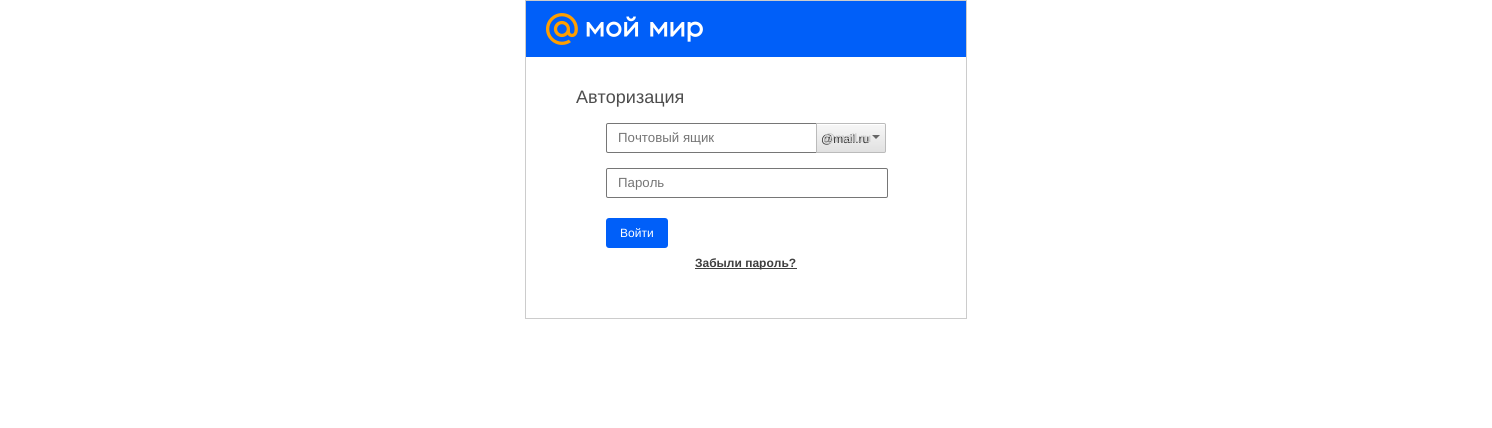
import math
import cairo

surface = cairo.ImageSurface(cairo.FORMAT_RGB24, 1492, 428)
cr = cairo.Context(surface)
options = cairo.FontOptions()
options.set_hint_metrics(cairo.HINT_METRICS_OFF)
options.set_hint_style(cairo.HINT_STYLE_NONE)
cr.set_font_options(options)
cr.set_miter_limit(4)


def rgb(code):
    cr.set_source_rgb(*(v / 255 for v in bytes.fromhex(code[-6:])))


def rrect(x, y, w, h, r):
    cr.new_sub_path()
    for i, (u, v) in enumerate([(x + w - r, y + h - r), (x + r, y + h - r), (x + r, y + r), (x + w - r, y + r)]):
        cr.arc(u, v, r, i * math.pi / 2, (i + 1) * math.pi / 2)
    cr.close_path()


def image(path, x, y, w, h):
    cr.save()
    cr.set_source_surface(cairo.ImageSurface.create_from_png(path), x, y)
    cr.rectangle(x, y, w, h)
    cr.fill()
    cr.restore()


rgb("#ffffff")
cr.paint()
cr.rectangle(525.5, 0.5, 441, 318)
rgb("#cccccc")
cr.set_line_width(1)
cr.stroke()
rgb("#005ff9")
cr.rectangle(526, 1, 440, 56)
cr.fill()
image("img/1.png", 546, 13, 157, 32)
rrect(606.5, 123.5, 211, 29, 1.5)
rgb("#767676")
cr.stroke()
gradient = cairo.LinearGradient(851, 124, 851, 152)
gradient.add_color_stop_rgba(0, 0.969, 0.969, 0.969, 1)
gradient.add_color_stop_rgba(1, 0.882, 0.882, 0.882, 1)
cr.set_source(gradient)
cr.rectangle(817, 124, 69, 28)
cr.fill()
rgb("#ffffff")
cr.new_path()
cr.move_to(817, 125)
cr.line_to(884, 125)
cr.curve_to(885, 125, 885, 125, 885, 126)
cr.line_to(885, 125)
cr.curve_to(885, 124, 885, 124, 884, 124)
cr.line_to(817, 124)
cr.close_path()
cr.fill()
cr.new_path()
cr.move_to(816.5, 123.5)
cr.line_to(884, 123.5)
cr.curve_to(885, 123.5, 885.5, 124, 885.5, 125)
cr.line_to(885.5, 151)
cr.curve_to(885.5, 152, 885, 152.5, 884, 152.5)
cr.line_to(816.5, 152.5)
cr.close_path()
rgb("#bbbbbb")
cr.stroke()
rgb("#666666")
cr.new_path()
cr.move_to(872, 135)
cr.line_to(880, 135)
cr.line_to(876, 139)
cr.close_path()
cr.fill()
rrect(606.5, 168.5, 281, 29, 1.5)
rgb("#767676")
cr.stroke()
rgb("#005ff9")
rrect(606, 218, 62, 30, 3)
cr.fill()
rgb("#3f3f3f")
cr.rectangle(695, 268, 102, 1)
cr.fill()
cr.select_font_face("Liberation Sans")
cr.set_font_size(18)
rgb("#4d4d4d")
cr.move_to(576, 103)
cr.show_text("Авторизация")
cr.set_font_size(13.25)
rgb("#757575")
cr.move_to(618, 142)
cr.show_text("Почтовый ящик")
cr.set_font_size(12)
rgb("#333333")
cr.move_to(821, 143)
cr.show_text("@mail.ru")
rgb("#c5c5c5")
cr.move_to(823, 142)
cr.show_text("@mail.ru")
cr.set_font_size(13.25)
rgb("#757575")
cr.move_to(618, 187)
cr.show_text("Пароль")
cr.set_font_size(12)
rgb("#ffffff")
cr.move_to(620, 237)
cr.show_text("Войти")
cr.select_font_face("Liberation Sans", cairo.FONT_SLANT_NORMAL, cairo.FONT_WEIGHT_BOLD)
rgb("#3f3f3f")
cr.move_to(695, 267)
cr.show_text("Забыли пароль?")
surface.write_to_png("page.png")
